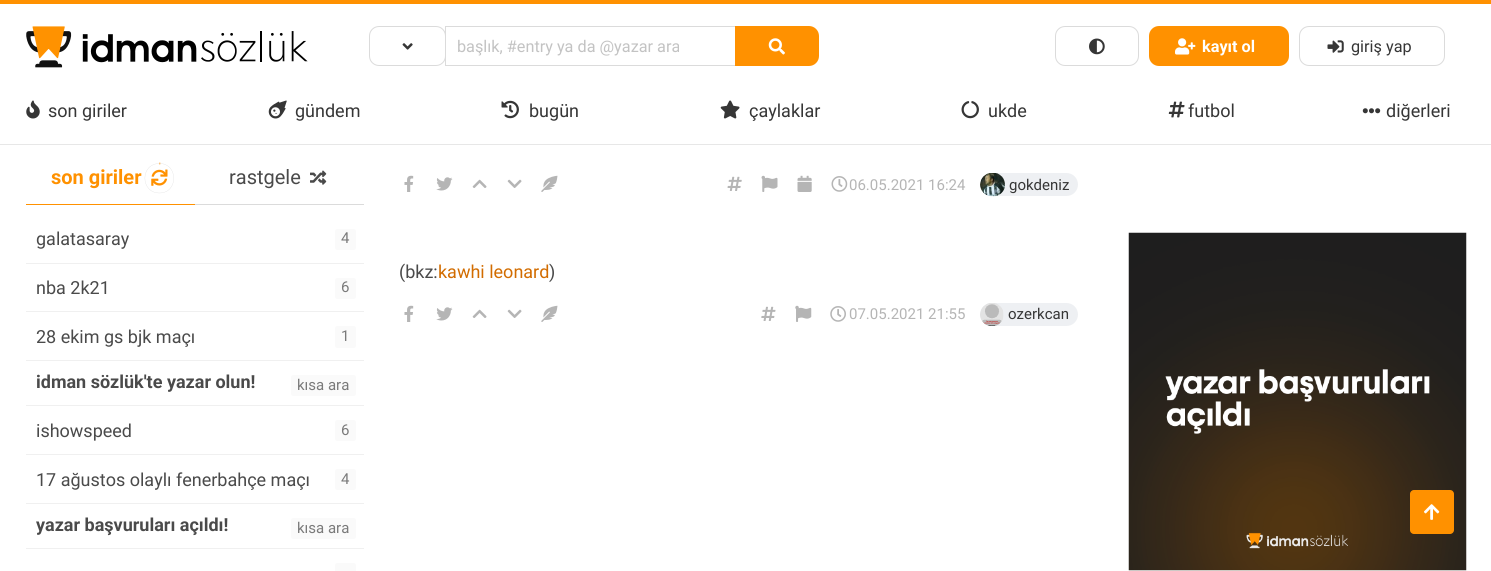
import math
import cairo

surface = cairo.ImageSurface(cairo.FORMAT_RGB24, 1491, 571)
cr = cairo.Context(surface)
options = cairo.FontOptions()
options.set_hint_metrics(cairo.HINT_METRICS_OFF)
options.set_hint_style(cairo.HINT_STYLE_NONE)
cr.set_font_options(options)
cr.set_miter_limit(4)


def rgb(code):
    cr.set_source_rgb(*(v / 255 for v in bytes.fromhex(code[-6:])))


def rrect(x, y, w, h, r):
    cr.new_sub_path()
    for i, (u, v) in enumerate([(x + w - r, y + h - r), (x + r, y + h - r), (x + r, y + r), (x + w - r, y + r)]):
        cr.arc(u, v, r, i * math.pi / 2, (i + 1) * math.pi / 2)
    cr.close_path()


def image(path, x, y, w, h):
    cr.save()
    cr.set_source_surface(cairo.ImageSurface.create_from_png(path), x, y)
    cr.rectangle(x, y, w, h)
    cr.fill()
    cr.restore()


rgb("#ffffff")
cr.paint()
rgb("#ff9100")
cr.rectangle(0, 0, 1491, 4)
cr.fill()
rgb("#e7e7e7")
cr.rectangle(0, 144, 1491, 1)
cr.fill()
image("img/1.png", 26, 26, 282, 42)
rrect(369.5, 26.5, 76, 39, 9.5)
rgb("#dbdbdb")
cr.set_line_width(1)
cr.stroke()
image("img/2.png", 402, 43, 11, 7)
cr.rectangle(445.5, 26.5, 290, 39)
cr.stroke()
rgb("#ff9100")
cr.new_path()
cr.move_to(735, 26)
cr.line_to(809, 26)
cr.curve_to(814.5, 26, 819, 30.5, 819, 36)
cr.line_to(819, 56)
cr.curve_to(819, 61.5, 814.5, 66, 809, 66)
cr.line_to(735, 66)
cr.close_path()
cr.fill()
image("img/3.png", 768, 38, 17, 17)
rrect(1055.5, 26.5, 83, 39, 9.5)
rgb("#dbdbdb")
cr.stroke()
image("img/4.png", 1089, 38, 16, 17)
rgb("#ff9100")
rrect(1149, 26, 140, 40, 10)
cr.fill()
image("img/5.png", 1175, 38, 21, 17)
rrect(1299.5, 26.5, 145, 39, 9.5)
rgb("#dbdbdb")
cr.stroke()
image("img/6.png", 1327, 40, 17, 13)
image("img/7.png", 26, 100, 14, 19)
image("img/8.png", 268, 100, 19, 19)
image("img/9.png", 501, 100, 18, 19)
image("img/10.png", 720, 100, 20, 19)
image("img/11.png", 961, 101, 18, 18)
image("img/12.png", 1168, 101, 17, 17)
image("img/13.png", 1362, 108, 19, 6)
cr.rectangle(195, 204, 169, 1)
cr.fill()
rgb("#ff9100")
cr.rectangle(26, 204, 169, 1)
cr.fill()
image("img/14.png", 151, 169, 17, 17)
cr.new_path()
cr.move_to(159.5, 163.5)
cr.curve_to(178.5, 163.5, 178.5, 193, 159.5, 193)
cr.curve_to(140, 193, 140, 163.5, 159.5, 163.5)
rgb("#dbdbdb")
cr.set_line_width(0.3)
cr.stroke()
cr.new_path()
cr.move_to(159.5, 163.5)
cr.curve_to(178.5, 163.5, 178.5, 193, 159.5, 193)
cr.curve_to(140, 193, 140, 163.5, 159.5, 163.5)
rgb("#ff9100")
cr.set_line_width(1.9)
cr.set_dash([92.32, 92.32], 91.6)
cr.stroke()
image("img/15.png", 310, 170, 17, 15)
rgb("#fafafa")
rrect(335, 229, 21, 21, 2.5)
cr.fill()
rgb("#f0f0f0")
cr.rectangle(26, 263, 338, 1)
cr.fill()
rgb("#fafafa")
rrect(335, 278, 21, 21, 2.5)
cr.fill()
rgb("#f0f0f0")
cr.rectangle(26, 311, 338, 1)
cr.fill()
rgb("#fafafa")
rrect(335, 326, 21, 22, 2.5)
cr.fill()
rgb("#f0f0f0")
cr.rectangle(26, 360, 338, 1)
cr.fill()
rgb("#fafafa")
rrect(291, 375, 65, 21, 2.5)
cr.fill()
rgb("#f0f0f0")
cr.rectangle(26, 405, 338, 1)
cr.fill()
rgb("#fafafa")
rrect(335, 420, 21, 21, 2.5)
cr.fill()
rgb("#f0f0f0")
cr.rectangle(26, 454, 338, 1)
cr.fill()
rgb("#fafafa")
rrect(335, 469, 21, 21, 2.5)
cr.fill()
rgb("#f0f0f0")
cr.rectangle(26, 503, 338, 1)
cr.fill()
rgb("#fafafa")
rrect(291, 518, 65, 21, 2.5)
cr.fill()
rgb("#f0f0f0")
cr.rectangle(26, 548, 338, 1)
cr.fill()
rgb("#fafafa")
rrect(335, 563, 21, 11, 2.5)
cr.fill()
image("img/16.png", 404, 175, 10, 17)
image("img/17.png", 436, 177, 17, 14)
image("img/18.png", 472, 179, 15, 9)
image("img/19.png", 507, 179, 15, 9)
image("img/20.png", 541, 175, 17, 17)
image("img/21.png", 727, 176, 15, 15)
image("img/22.png", 761, 175, 17, 17)
image("img/23.png", 797, 175, 15, 17)
image("img/24.png", 831, 176, 17, 16)
rgb("#eef0f3")
rrect(980, 173, 98, 23, 11.5)
cr.fill()
image("img/25.png", 980, 173, 25, 24)
image("img/16.png", 404, 305, 10, 17)
image("img/17.png", 436, 307, 17, 14)
image("img/18.png", 472, 309, 15, 9)
image("img/19.png", 507, 309, 15, 9)
image("img/20.png", 541, 305, 17, 17)
image("img/26.png", 761, 306, 15, 15)
image("img/27.png", 795, 305, 17, 17)
image("img/28.png", 830, 306, 16, 16)
rrect(980, 303, 98, 23, 11.5)
cr.fill()
image("img/29.png", 980, 303, 24, 23)
image("img/30.png", 1128, 232, 339, 339)
rgb("#ff9100")
rrect(1410, 490, 44, 44, 4)
cr.fill()
image("img/31.png", 1424, 504, 16, 16)
cr.select_font_face("Roboto")
cr.set_font_size(16.25)
rgb("#c3c3c3")
cr.move_to(457, 52)
cr.show_text("başlık, #entry ya da @yazar ara")
cr.select_font_face("Roboto", cairo.FONT_SLANT_NORMAL, cairo.FONT_WEIGHT_BOLD)
rgb("#ffffff")
cr.move_to(1202, 52)
cr.show_text("kayıt ol")
cr.select_font_face("Roboto")
rgb("#363636")
cr.move_to(1351, 52)
cr.show_text("giriş yap")
cr.set_font_size(18)
for x, y, s in [
    (48, 117, "son giriler"),
    (295, 117, "gündem"),
    (529, 117, "bugün"),
    (749, 117, "çaylaklar"),
    (988, 117, "ukde"),
    (1188, 117, "futbol"),
    (1386, 117, "diğerleri"),
]:
    cr.move_to(x, y)
    cr.show_text(s)
cr.select_font_face("Roboto", cairo.FONT_SLANT_NORMAL, cairo.FONT_WEIGHT_BOLD)
cr.set_font_size(20)
rgb("#ff9100")
cr.move_to(51, 184)
cr.show_text("son giriler")
cr.select_font_face("Roboto")
rgb("#4a4a4a")
cr.move_to(229, 184)
cr.show_text("rastgele")
cr.set_font_size(18)
cr.move_to(36, 245)
cr.show_text("galatasaray")
cr.set_font_size(15)
rgb("#7a7a7a")
cr.move_to(341, 243)
cr.show_text("4")
cr.set_font_size(18)
rgb("#4a4a4a")
cr.move_to(36, 294)
cr.show_text("nba 2k21")
cr.set_font_size(15)
rgb("#7a7a7a")
cr.move_to(341, 292)
cr.show_text("6")
cr.set_font_size(18)
rgb("#4a4a4a")
cr.move_to(36, 343)
cr.show_text("28 ekim gs bjk maçı")
cr.set_font_size(15)
rgb("#7a7a7a")
cr.move_to(341, 341)
cr.show_text("1")
cr.select_font_face("Roboto", cairo.FONT_SLANT_NORMAL, cairo.FONT_WEIGHT_BOLD)
cr.set_font_size(18)
rgb("#4a4a4a")
cr.move_to(36, 388)
cr.show_text("idman sözlük'te yazar olun!")
cr.select_font_face("Roboto")
cr.set_font_size(15)
rgb("#7a7a7a")
cr.move_to(297, 390)
cr.show_text("kısa ara")
cr.set_font_size(18)
rgb("#4a4a4a")
cr.move_to(36, 437)
cr.show_text("ishowspeed")
cr.set_font_size(15)
rgb("#7a7a7a")
cr.move_to(341, 435)
cr.show_text("6")
cr.set_font_size(18)
rgb("#4a4a4a")
cr.move_to(36, 486)
cr.show_text("17 ağustos olaylı fenerbahçe maçı")
cr.set_font_size(15)
rgb("#7a7a7a")
cr.move_to(341, 484)
cr.show_text("4")
cr.select_font_face("Roboto", cairo.FONT_SLANT_NORMAL, cairo.FONT_WEIGHT_BOLD)
cr.set_font_size(18)
rgb("#4a4a4a")
cr.move_to(36, 531)
cr.show_text("yazar başvuruları açıldı!")
cr.select_font_face("Roboto")
cr.set_font_size(15)
rgb("#7a7a7a")
cr.move_to(297, 533)
cr.show_text("kısa ara")
rgb("#b5b5b5")
cr.move_to(849, 190)
cr.show_text("06.05.2021 16:24")
rgb("#363636")
cr.move_to(1009, 190)
cr.show_text("gokdeniz")
cr.set_font_size(18)
rgb("#4a4a4a")
cr.move_to(399, 278)
cr.show_text("(bkz:")
rgb("#d26c00")
cr.move_to(438, 278)
cr.show_text("kawhi leonard")
rgb("#4a4a4a")
cr.move_to(549, 278)
cr.show_text(")")
cr.set_font_size(15)
rgb("#b5b5b5")
cr.move_to(849, 319)
cr.show_text("07.05.2021 21:55")
rgb("#363636")
cr.move_to(1008, 319)
cr.show_text("ozerkcan")
surface.write_to_png("page.png")
